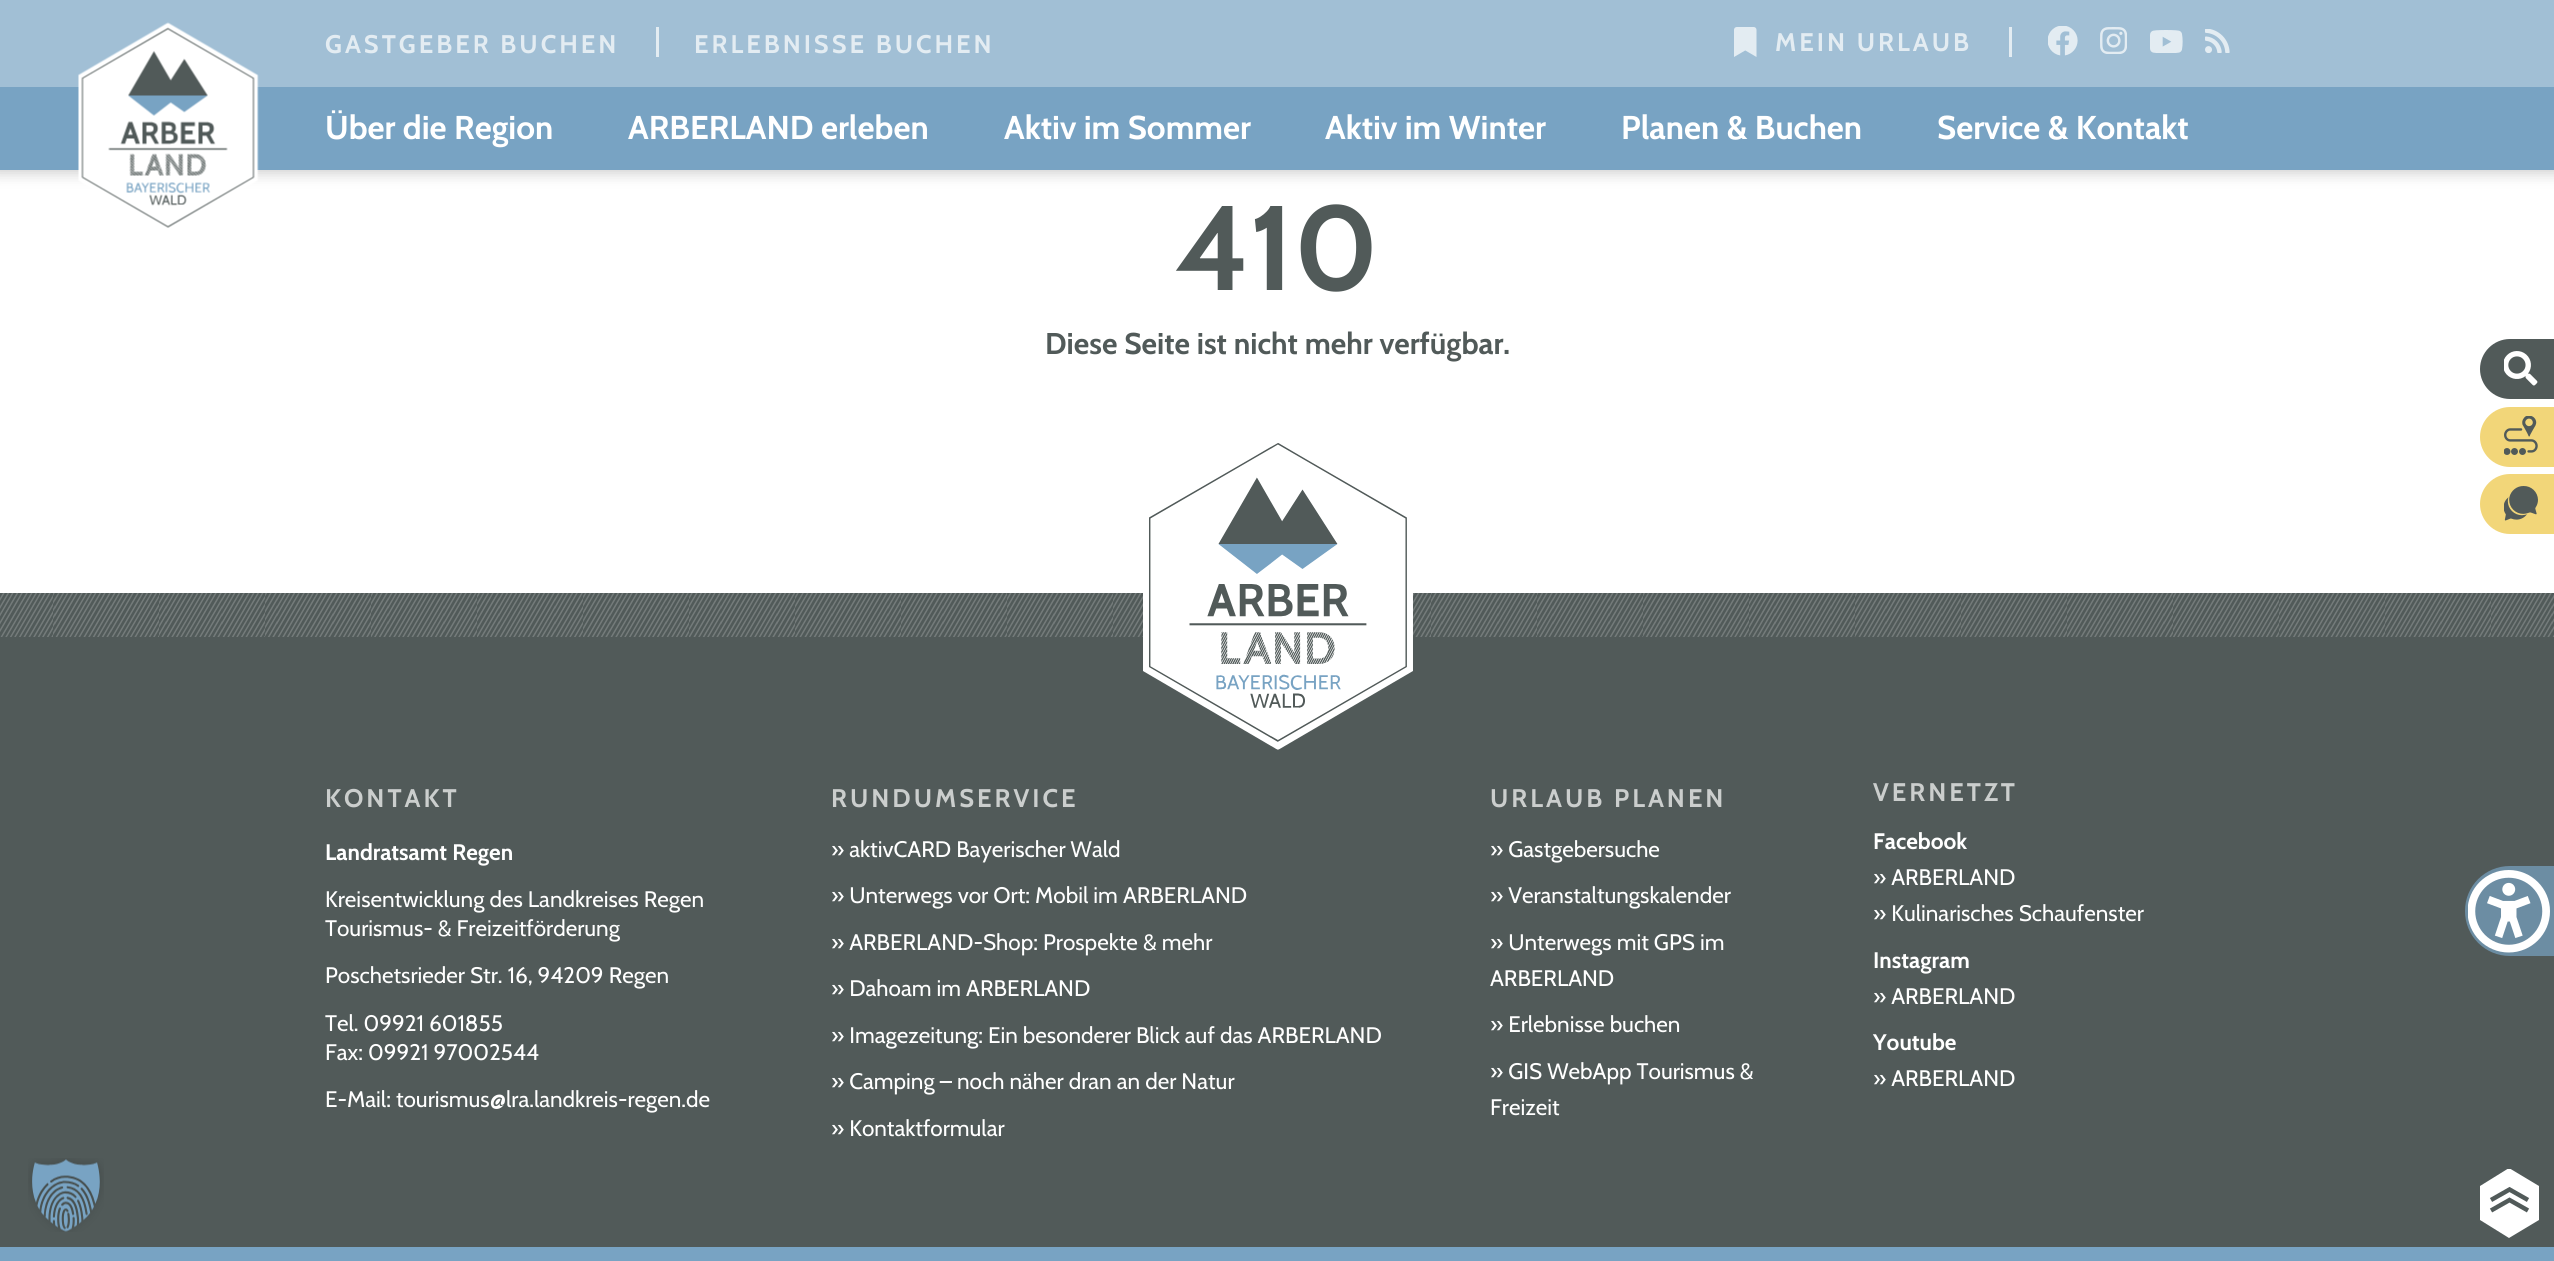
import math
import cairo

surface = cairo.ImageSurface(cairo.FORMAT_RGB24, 2554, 1261)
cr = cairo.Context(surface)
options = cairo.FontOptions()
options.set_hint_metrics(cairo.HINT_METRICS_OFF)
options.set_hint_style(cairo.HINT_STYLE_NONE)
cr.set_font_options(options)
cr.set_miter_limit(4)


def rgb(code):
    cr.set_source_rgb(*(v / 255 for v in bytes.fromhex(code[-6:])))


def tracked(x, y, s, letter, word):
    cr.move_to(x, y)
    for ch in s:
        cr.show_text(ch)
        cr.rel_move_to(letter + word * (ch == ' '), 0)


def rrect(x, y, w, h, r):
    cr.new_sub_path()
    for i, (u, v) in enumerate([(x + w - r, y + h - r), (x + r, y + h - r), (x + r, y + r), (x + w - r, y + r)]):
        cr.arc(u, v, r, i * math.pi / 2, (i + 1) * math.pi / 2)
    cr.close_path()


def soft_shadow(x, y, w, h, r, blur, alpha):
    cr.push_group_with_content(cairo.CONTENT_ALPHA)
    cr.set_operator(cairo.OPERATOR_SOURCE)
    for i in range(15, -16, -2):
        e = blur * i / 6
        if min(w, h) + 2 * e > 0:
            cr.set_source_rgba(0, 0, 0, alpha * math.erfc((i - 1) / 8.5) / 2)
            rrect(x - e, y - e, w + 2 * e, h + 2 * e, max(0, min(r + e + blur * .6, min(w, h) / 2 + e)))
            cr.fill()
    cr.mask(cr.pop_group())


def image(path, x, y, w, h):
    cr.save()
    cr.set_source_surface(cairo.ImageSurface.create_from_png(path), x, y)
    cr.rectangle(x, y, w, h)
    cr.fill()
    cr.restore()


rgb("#ffffff")
cr.paint()
rgb("#000000")
soft_shadow(-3, -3, 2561, 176, 0, 7.5, 0.2)
for x, y, w, h, color in [
    (0, 87, 2554, 83, "#78a3c3"),
    (0, 0, 2554, 87, "#a1bfd5"),
    (656, 27, 3, 30, "#e3ecf2"),
]:
    rgb(color)
    cr.rectangle(x, y, w, h)
    cr.fill()
image("img/1.png", 1734, 27, 23, 30)
cr.rectangle(2009, 27, 3, 30)
cr.fill()
image("img/2.png", 2048, 26, 30, 30)
image("img/3.png", 2100, 27, 27, 27)
image("img/4.png", 2150, 30, 33, 23)
image("img/5.png", 2205, 29, 25, 24)
image("img/6.png", 78, 22, 181, 206)
rgb("#515a59")
cr.new_path()
cr.move_to(2510, 339)
cr.line_to(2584, 339)
cr.line_to(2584, 399)
cr.line_to(2510, 399)
cr.curve_to(2493.5, 399, 2480, 385.5, 2480, 369)
cr.curve_to(2480, 352.5, 2493.5, 339, 2510, 339)
cr.close_path()
cr.fill()
image("img/7.png", 2504, 351, 34, 35)
rgb("#f2d679")
cr.new_path()
cr.move_to(2510, 407)
cr.line_to(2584, 407)
cr.line_to(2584, 467)
cr.line_to(2510, 467)
cr.curve_to(2493.5, 467, 2480, 453.5, 2480, 437)
cr.curve_to(2480, 420.5, 2493.5, 407, 2510, 407)
cr.close_path()
cr.fill()
image("img/8.png", 2504, 416, 34, 39)
cr.new_path()
cr.move_to(2510, 474)
cr.line_to(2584, 474)
cr.line_to(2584, 534)
cr.line_to(2510, 534)
cr.curve_to(2493.5, 534, 2480, 520.5, 2480, 504)
cr.curve_to(2480, 487.5, 2493.5, 474, 2510, 474)
cr.close_path()
cr.fill()
image("img/9.png", 2504, 486, 34, 35)
rgb("#515a59")
cr.rectangle(0, 593, 2554, 654)
cr.fill()
image("img/11.png", 0, 593, 2554, 44)
image("img/10.png", 1143, 443, 270, 307)
rgb("#78a3c3")
cr.rectangle(0, 1247, 2554, 14)
cr.fill()
cr.save()
cr.rectangle(2480, 1169, 60, 70)
cr.clip()
rgb("#ffffff")
cr.new_path()
cr.move_to(2509, 1168)
cr.line_to(2480, 1186)
cr.line_to(2480, 1220)
cr.line_to(2509, 1238)
cr.line_to(2539, 1220)
cr.line_to(2539, 1186)
cr.close_path()
cr.fill()
cr.restore()
cr.new_path()
cr.move_to(2528, 1200)
cr.line_to(2509.5, 1189.5)
cr.line_to(2491, 1200)
cr.move_to(2528, 1210.5)
cr.line_to(2509.5, 1200)
cr.line_to(2491, 1210.5)
rgb("#515a59")
cr.set_line_width(4.5)
cr.stroke()
rgb("#6c8da3")
cr.new_path()
cr.move_to(2510, 866)
cr.line_to(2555, 866)
cr.line_to(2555, 956)
cr.line_to(2510, 956)
cr.curve_to(2485, 956, 2465, 936, 2465, 911)
cr.curve_to(2465, 886, 2485, 866, 2510, 866)
cr.close_path()
cr.fill()
image("img/12.png", 2468, 870, 82, 83)
image("img/13.png", 28, 1158, 76, 74)
cr.select_font_face("Cabin", cairo.FONT_SLANT_NORMAL, cairo.FONT_WEIGHT_BOLD)
cr.set_font_size(25.5)
rgb("#e3ecf2")
for x, y, s in [
    (325, 53, "GASTGEBER BUCHEN"),
    (694, 53, "ERLEBNISSE BUCHEN"),
    (1775, 51, "MEIN URLAUB"),
]:
    tracked(x, y, s, 3, 0)
cr.set_font_size(33)
rgb("#ffffff")
for x, y, s in [
    (325, 139, "Über die Region"),
    (628, 139, "ARBERLAND erleben"),
    (1004, 139, "Aktiv im Sommer"),
    (1325, 139, "Aktiv im Winter"),
    (1621, 139, "Planen & Buchen"),
    (1937, 139, "Service & Kontakt"),
]:
    cr.move_to(x, y)
    cr.show_text(s)
cr.set_font_size(120)
rgb("#515a59")
cr.move_to(1175, 290)
cr.show_text("410")
cr.set_font_size(30)
cr.move_to(1045, 354)
cr.show_text("Diese Seite ist nicht mehr verfügbar.")
cr.set_font_size(25.5)
rgb("#cbcecd")
tracked(325, 807, "KONTAKT", 3, 0)
cr.set_font_size(22.5)
rgb("#ffffff")
cr.move_to(325, 860)
cr.show_text("Landratsamt Regen")
cr.select_font_face("Cabin")
for x, y, s in [
    (325, 907, "Kreisentwicklung des Landkreises Regen"),
    (325, 936, "Tourismus- & Freizeitförderung"),
    (325, 983, "Poschetsrieder Str. 16, 94209 Regen"),
    (325, 1031, "Tel. 09921 601855"),
    (325, 1060, "Fax: 09921 97002544"),
    (325, 1107, "E-Mail: tourismus@lra.landkreis-regen.de"),
]:
    cr.move_to(x, y)
    cr.show_text(s)
cr.select_font_face("Cabin", cairo.FONT_SLANT_NORMAL, cairo.FONT_WEIGHT_BOLD)
cr.set_font_size(25.5)
rgb("#cbcecd")
tracked(831, 807, "RUNDUMSERVICE", 3, 0)
cr.select_font_face("Cabin")
cr.set_font_size(22.5)
rgb("#ffffff")
for x, y, s in [
    (831, 857, "» aktivCARD Bayerischer Wald"),
    (831, 903, "» Unterwegs vor Ort: Mobil im ARBERLAND"),
    (831, 950, "» ARBERLAND-Shop: Prospekte & mehr"),
    (831, 996, "» Dahoam im ARBERLAND"),
    (831, 1043, "» Imagezeitung: Ein besonderer Blick auf das ARBERLAND"),
    (831, 1089, "» Camping – noch näher dran an der Natur"),
    (831, 1136, "» Kontaktformular"),
]:
    cr.move_to(x, y)
    cr.show_text(s)
cr.select_font_face("Cabin", cairo.FONT_SLANT_NORMAL, cairo.FONT_WEIGHT_BOLD)
cr.set_font_size(25.5)
rgb("#cbcecd")
tracked(1490, 807, "URLAUB PLANEN", 3, 0)
cr.select_font_face("Cabin")
cr.set_font_size(22.5)
rgb("#ffffff")
for x, y, s in [
    (1490, 857, "» Gastgebersuche"),
    (1490, 903, "» Veranstaltungskalender"),
    (1490, 950, "» Unterwegs mit GPS im"),
    (1490, 986, "ARBERLAND"),
    (1490, 1032, "» Erlebnisse buchen"),
    (1490, 1079, "» GIS WebApp Tourismus &"),
    (1490, 1115, "Freizeit"),
]:
    cr.move_to(x, y)
    cr.show_text(s)
cr.select_font_face("Cabin", cairo.FONT_SLANT_NORMAL, cairo.FONT_WEIGHT_BOLD)
cr.set_font_size(25.5)
rgb("#cbcecd")
tracked(1873, 801, "VERNETZT", 3, 0)
cr.set_font_size(22.5)
rgb("#ffffff")
cr.move_to(1873, 849)
cr.show_text("Facebook")
cr.select_font_face("Cabin")
cr.move_to(1873, 885)
cr.show_text("» ARBERLAND")
cr.move_to(1873, 921)
cr.show_text("» Kulinarisches Schaufenster")
cr.select_font_face("Cabin", cairo.FONT_SLANT_NORMAL, cairo.FONT_WEIGHT_BOLD)
cr.move_to(1873, 968)
cr.show_text("Instagram")
cr.select_font_face("Cabin")
cr.move_to(1873, 1004)
cr.show_text("» ARBERLAND")
cr.select_font_face("Cabin", cairo.FONT_SLANT_NORMAL, cairo.FONT_WEIGHT_BOLD)
cr.move_to(1873, 1050)
cr.show_text("Youtube")
cr.select_font_face("Cabin")
cr.move_to(1873, 1086)
cr.show_text("» ARBERLAND")
surface.write_to_png("page.png")
